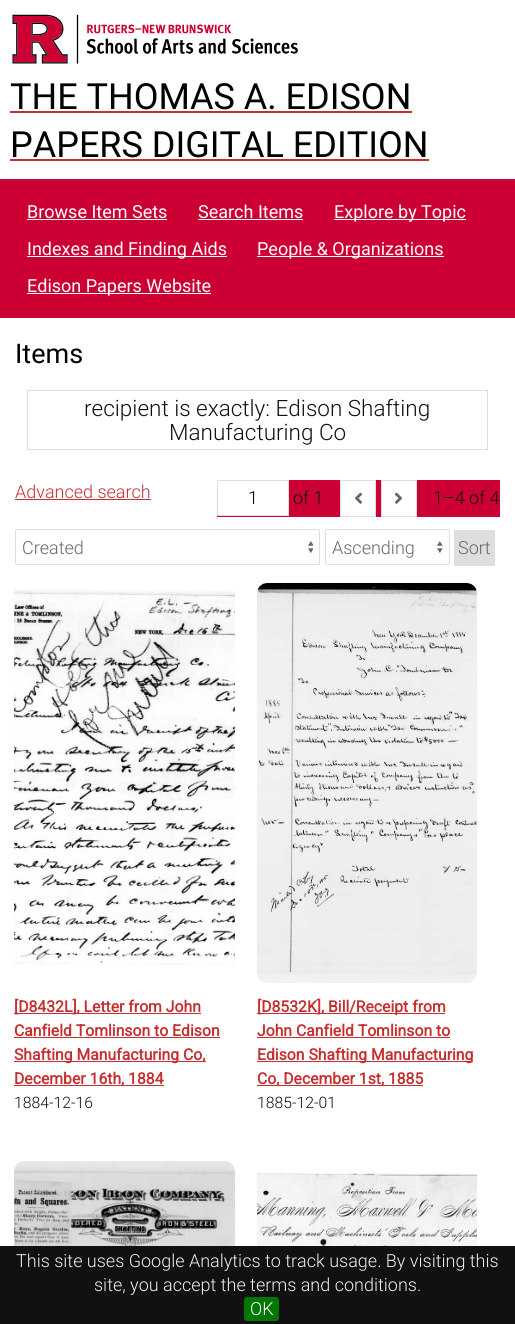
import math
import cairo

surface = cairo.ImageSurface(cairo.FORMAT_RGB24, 515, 1324)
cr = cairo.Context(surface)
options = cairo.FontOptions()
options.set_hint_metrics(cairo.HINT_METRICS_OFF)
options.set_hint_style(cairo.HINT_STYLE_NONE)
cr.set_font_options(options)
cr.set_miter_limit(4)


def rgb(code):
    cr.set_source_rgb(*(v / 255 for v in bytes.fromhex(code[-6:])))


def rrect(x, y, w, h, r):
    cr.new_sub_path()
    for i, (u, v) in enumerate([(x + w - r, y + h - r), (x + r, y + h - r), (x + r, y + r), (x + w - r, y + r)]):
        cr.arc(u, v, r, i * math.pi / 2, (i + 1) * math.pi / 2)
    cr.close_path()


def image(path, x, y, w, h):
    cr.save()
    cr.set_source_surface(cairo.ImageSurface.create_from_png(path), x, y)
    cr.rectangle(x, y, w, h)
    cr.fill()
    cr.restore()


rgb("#ffffff")
cr.paint()
image("img/1.png", 12, 14, 286, 50)
for x, y, w, h, color in [
    (10, 111, 402, 2, "#c72e2e"),
    (10, 159, 419, 2, "#c72e2e"),
    (0, 179, 515, 139, "#cc0033"),
    (27, 219, 140, 1, "#ffffff"),
    (198, 219, 105, 1, "#ffffff"),
    (334, 219, 132, 1, "#ffffff"),
    (27, 256, 200, 1, "#ffffff"),
    (257, 256, 187, 1, "#ffffff"),
    (27, 293, 184, 1, "#ffffff"),
]:
    rgb(color)
    cr.rectangle(x, y, w, h)
    cr.fill()
cr.rectangle(27.5, 390.5, 460, 59)
rgb("#dedede")
cr.set_line_width(1)
cr.stroke()
rgb("#c72e2e")
cr.rectangle(15, 499, 136, 1)
cr.fill()
rgb("#cc0033")
cr.rectangle(217, 480, 283, 37)
cr.fill()
rgb("#ffffff")
cr.rectangle(217.5, 480.5, 71, 35)
cr.fill_preserve()
rgb("#dedede")
cr.stroke()
rgb("#ffffff")
cr.rectangle(340.5, 480.5, 35, 36)
cr.fill_preserve()
rgb("#dedede")
cr.stroke()
image("img/2.png", 354, 492, 9, 12)
rgb("#ffffff")
cr.rectangle(381.5, 480.5, 35, 36)
cr.fill_preserve()
rgb("#dedede")
cr.stroke()
image("img/3.png", 394, 492, 9, 12)
image("img/4.png", 308, 541, 5, 12)
rrect(15.5, 529.5, 304, 35, 1.5)
cr.stroke()
image("img/5.png", 437, 541, 6, 12)
rrect(325.5, 529.5, 124, 35, 1.5)
cr.stroke()
cr.rectangle(454, 530, 41, 36)
cr.fill()
image("img/6.png", 14, 589, 221, 376)
for x, y, w, h, color in [
    (14, 1013, 187, 1, "#c72e2e"),
    (14, 1037, 206, 1, "#c72e2e"),
    (14, 1061, 192, 1, "#c72e2e"),
    (14, 1085, 150, 1, "#c72e2e"),
]:
    rgb(color)
    cr.rectangle(x, y, w, h)
    cr.fill()
image("img/7.png", 257, 583, 220, 400)
for x, y, w, h, color in [
    (257, 1013, 188, 1, "#c72e2e"),
    (257, 1037, 193, 1, "#c72e2e"),
    (257, 1061, 216, 1, "#c72e2e"),
    (257, 1085, 166, 1, "#c72e2e"),
]:
    rgb(color)
    cr.rectangle(x, y, w, h)
    cr.fill()
image("img/8.png", 14, 1161, 221, 85)
image("img/9.png", 257, 1171, 220, 75)
rgb("#111111")
cr.rectangle(0, 1246, 515, 78)
cr.fill()
rgb("#007700")
rrect(244, 1297, 35, 24, 3)
cr.fill()
cr.select_font_face("Roboto")
cr.set_font_size(36)
rgb("#000000")
cr.move_to(10, 109)
cr.show_text("THE THOMAS A. EDISON")
cr.move_to(10, 157)
cr.show_text("PAPERS DIGITAL EDITION")
cr.set_font_size(18)
rgb("#ffffff")
for x, y, s in [
    (27, 218, "Browse Item Sets"),
    (198, 218, "Search Items"),
    (334, 218, "Explore by Topic"),
    (27, 255, "Indexes and Finding Aids"),
    (257, 255, "People & Organizations"),
    (27, 292, "Edison Papers Website"),
]:
    cr.move_to(x, y)
    cr.show_text(s)
cr.set_font_size(27)
rgb("#000000")
cr.move_to(15, 363)
cr.show_text("Items")
cr.select_font_face("Roboto Light")
cr.set_font_size(22.5)
rgb("#111111")
cr.move_to(84, 416)
cr.show_text("recipient is exactly: Edison Shafting")
cr.move_to(169, 440)
cr.show_text("Manufacturing Co")
cr.set_font_size(18)
rgb("#c72e2e")
cr.move_to(15, 498)
cr.show_text("Advanced search")
rgb("#000000")
cr.move_to(248, 504)
cr.show_text("1")
rgb("#111111")
cr.move_to(293, 504)
cr.show_text("of 1")
cr.move_to(433, 504)
cr.show_text("1–4 of 4")
rgb("#676767")
for x, y, s in [
    (22, 554, "Created"),
    (332, 554, "Ascending"),
    (458, 554, "Sort"),
]:
    cr.move_to(x, y)
    cr.show_text(s)
cr.select_font_face("Roboto", cairo.FONT_SLANT_NORMAL, cairo.FONT_WEIGHT_BOLD)
cr.set_font_size(15.75)
rgb("#c72e2e")
for x, y, s in [
    (14, 1012, "[D8432L], Letter from John"),
    (14, 1036, "Canfield Tomlinson to Edison"),
    (14, 1060, "Shafting Manufacturing Co,"),
    (14, 1084, "December 16th, 1884"),
]:
    cr.move_to(x, y)
    cr.show_text(s)
cr.select_font_face("Roboto Light")
rgb("#111111")
cr.move_to(14, 1108)
cr.show_text("1884-12-16")
cr.select_font_face("Roboto", cairo.FONT_SLANT_NORMAL, cairo.FONT_WEIGHT_BOLD)
rgb("#c72e2e")
for x, y, s in [
    (257, 1012, "[D8532K], Bill/Receipt from"),
    (257, 1036, "John Canfield Tomlinson to"),
    (257, 1060, "Edison Shafting Manufacturing"),
    (257, 1084, "Co, December 1st, 1885"),
]:
    cr.move_to(x, y)
    cr.show_text(s)
cr.select_font_face("Roboto Light")
rgb("#111111")
cr.move_to(257, 1108)
cr.show_text("1885-12-01")
cr.set_font_size(18)
rgb("#eeeeee")
cr.move_to(16, 1267)
cr.show_text("This site uses Google Analytics to track usage. By visiting this")
cr.move_to(94, 1291)
cr.show_text("site, you accept the terms and conditions.")
rgb("#ffffff")
cr.move_to(250, 1315)
cr.show_text("OK")
surface.write_to_png("page.png")
